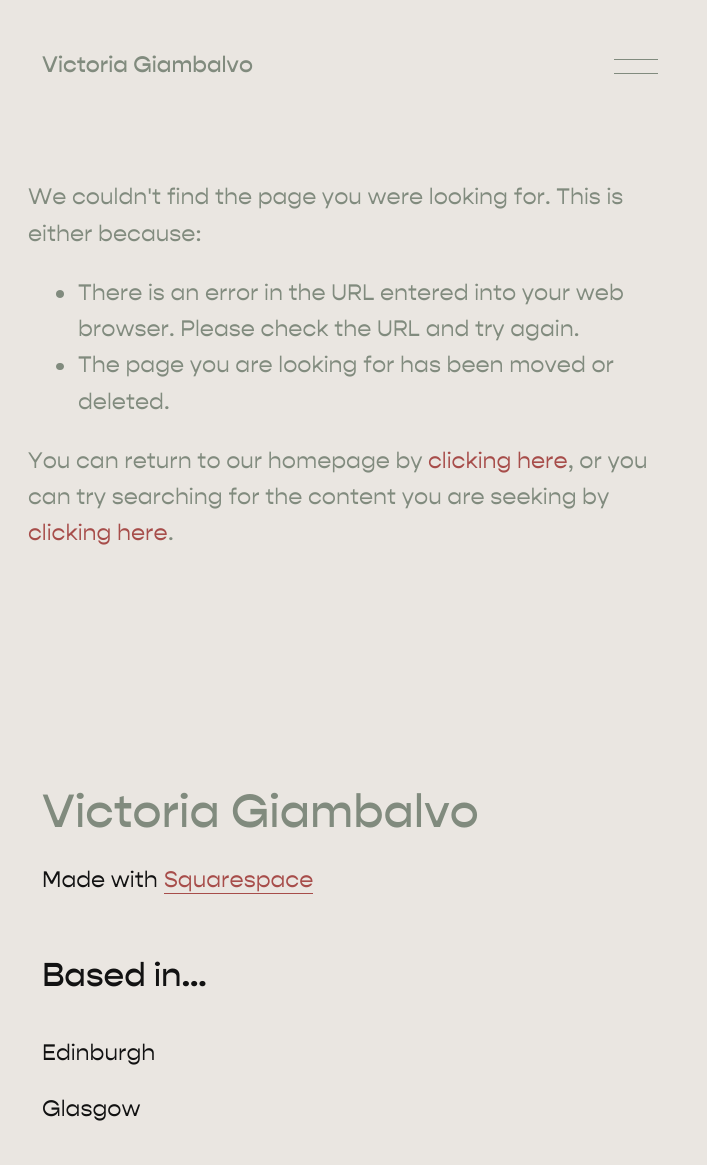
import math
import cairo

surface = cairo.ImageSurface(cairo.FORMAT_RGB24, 707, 1165)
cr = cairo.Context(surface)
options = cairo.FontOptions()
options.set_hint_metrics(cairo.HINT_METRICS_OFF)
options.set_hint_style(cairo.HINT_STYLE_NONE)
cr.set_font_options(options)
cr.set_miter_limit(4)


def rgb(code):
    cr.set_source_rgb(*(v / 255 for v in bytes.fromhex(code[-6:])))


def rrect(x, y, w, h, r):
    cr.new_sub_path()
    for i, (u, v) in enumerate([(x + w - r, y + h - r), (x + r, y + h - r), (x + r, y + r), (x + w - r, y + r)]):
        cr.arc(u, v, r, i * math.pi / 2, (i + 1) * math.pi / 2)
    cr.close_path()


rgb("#eae6e1")
cr.paint()
rgb("#818b7e")
cr.rectangle(614, 59, 44, 1)
cr.fill()
cr.rectangle(614, 73, 44, 1)
cr.fill()
cr.arc(60, 294, 4, 0, 2 * math.pi)
cr.fill()
rrect(56, 363, 8, 7, 3.5)
cr.fill()
rgb("#a74d4a")
cr.rectangle(164, 893, 149, 1)
cr.fill()
cr.select_font_face("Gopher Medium")
cr.set_font_size(22.7)
rgb("#818b7e")
cr.move_to(42, 72)
cr.show_text("Victoria Giambalvo")
cr.select_font_face("Gopher")
for x, y, s in [
    (28, 204, "We couldn't find the page you were looking for. This is"),
    (28, 241, "either because:"),
    (78, 300, "There is an error in the URL entered into your web"),
    (78, 336, "browser. Please check the URL and try again."),
    (78, 372, "The page you are looking for has been moved or"),
    (78, 409, "deleted."),
    (28, 468, "You can return to our homepage by"),
]:
    cr.move_to(x, y)
    cr.show_text(s)
rgb("#a74d4a")
cr.move_to(428, 468)
cr.show_text("clicking here")
rgb("#818b7e")
cr.move_to(568, 468)
cr.show_text(", or you")
cr.move_to(28, 504)
cr.show_text("can try searching for the content you are seeking by")
rgb("#a74d4a")
cr.move_to(28, 540)
cr.show_text("clicking here")
rgb("#818b7e")
cr.move_to(168, 540)
cr.show_text(".")
cr.select_font_face("Gopher Medium")
cr.set_font_size(47)
cr.move_to(42, 827)
cr.show_text("Victoria Giambalvo")
cr.select_font_face("Gopher")
cr.set_font_size(22.7)
rgb("#121212")
cr.move_to(42, 887)
cr.show_text("Made with")
rgb("#a74d4a")
cr.move_to(164, 887)
cr.show_text("Squarespace")
cr.select_font_face("Gopher Medium")
cr.set_font_size(33.5)
rgb("#121212")
cr.move_to(42, 986)
cr.show_text("Based in…")
cr.select_font_face("Gopher")
cr.set_font_size(22.7)
cr.move_to(42, 1060)
cr.show_text("Edinburgh")
cr.move_to(42, 1116)
cr.show_text("Glasgow")
surface.write_to_png("page.png")
